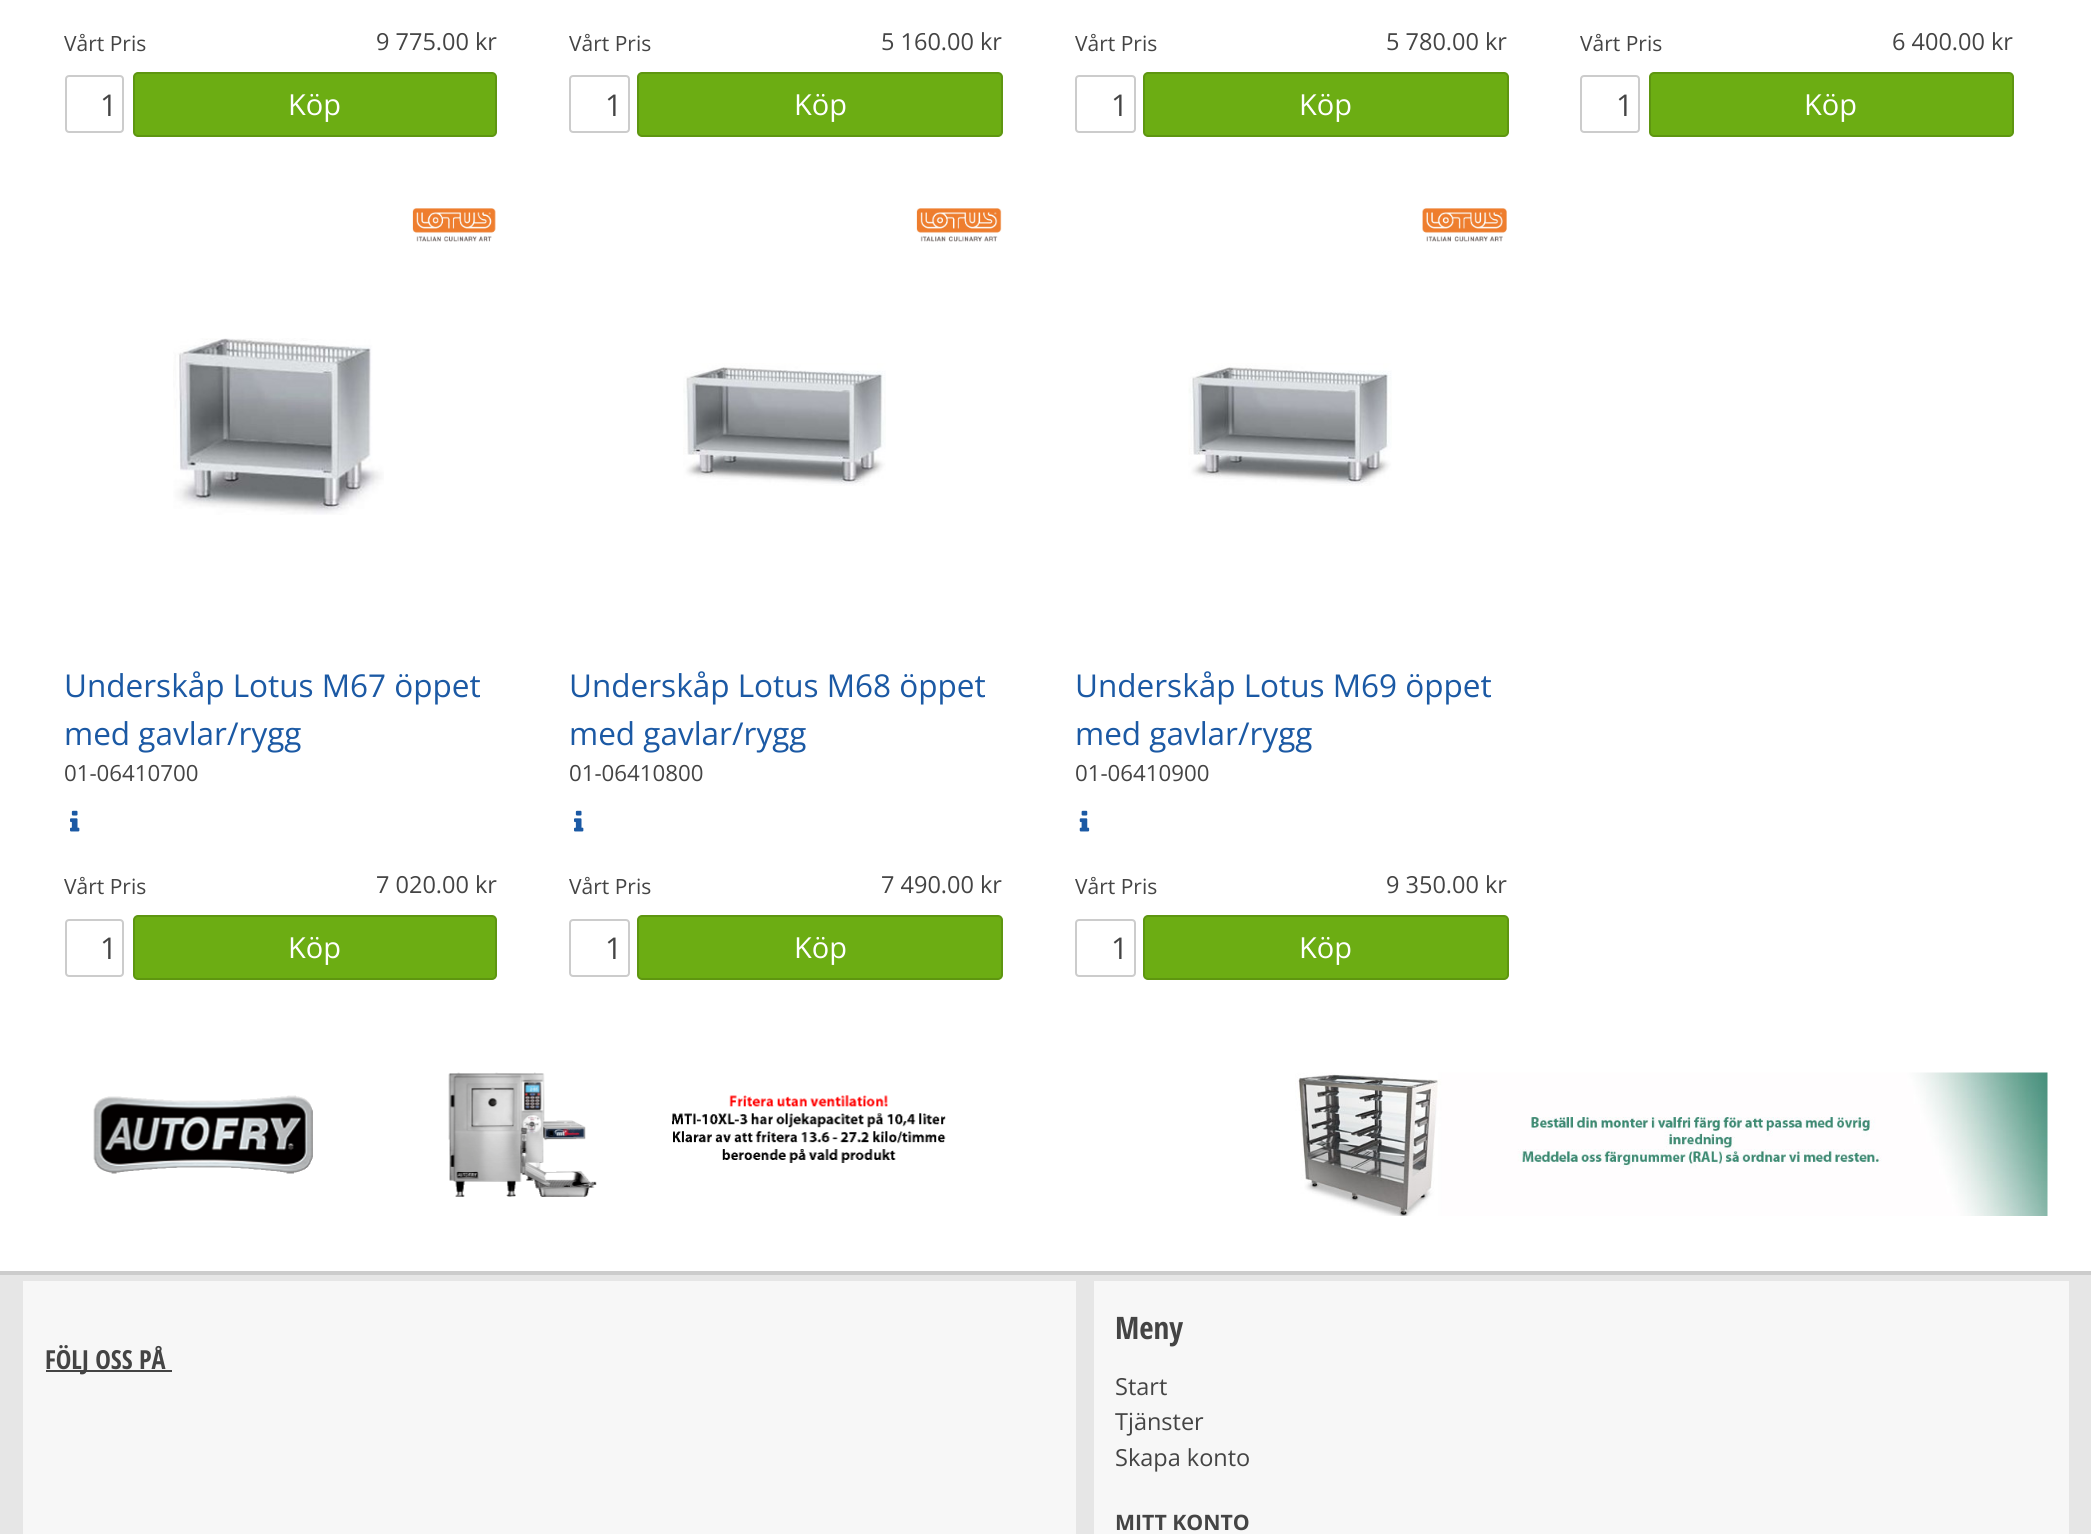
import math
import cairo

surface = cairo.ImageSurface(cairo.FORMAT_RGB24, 2091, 1534)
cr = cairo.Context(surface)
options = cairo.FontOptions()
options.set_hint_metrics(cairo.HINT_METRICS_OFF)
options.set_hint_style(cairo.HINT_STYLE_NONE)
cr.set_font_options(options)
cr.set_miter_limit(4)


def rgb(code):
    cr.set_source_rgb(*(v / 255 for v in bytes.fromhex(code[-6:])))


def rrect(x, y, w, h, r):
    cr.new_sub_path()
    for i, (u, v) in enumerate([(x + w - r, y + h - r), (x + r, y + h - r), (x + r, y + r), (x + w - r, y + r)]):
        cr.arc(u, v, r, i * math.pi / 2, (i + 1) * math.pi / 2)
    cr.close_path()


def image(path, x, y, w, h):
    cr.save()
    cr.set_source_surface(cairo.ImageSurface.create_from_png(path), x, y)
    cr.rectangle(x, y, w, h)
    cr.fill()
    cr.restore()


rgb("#ffffff")
cr.paint()
rrect(66, 76, 57, 56, 3)
rgb("#cccccc")
cr.stroke()
rgb("#6cad13")
rrect(134, 73, 362, 63, 4)
cr.fill_preserve()
rgb("#5e9610")
cr.stroke()
rrect(570, 76, 59, 56, 3)
rgb("#cccccc")
cr.stroke()
rgb("#6cad13")
rrect(638, 73, 364, 63, 4)
cr.fill_preserve()
rgb("#5e9610")
cr.stroke()
rrect(1076, 76, 59, 56, 3)
rgb("#cccccc")
cr.stroke()
rgb("#6cad13")
rrect(1144, 73, 364, 63, 4)
cr.fill_preserve()
rgb("#5e9610")
cr.stroke()
rrect(1581, 76, 58, 56, 3)
rgb("#cccccc")
cr.stroke()
rgb("#6cad13")
rrect(1650, 73, 363, 63, 4)
cr.fill_preserve()
rgb("#5e9610")
cr.stroke()
image("img/1.png", 412, 208, 84, 34)
image("img/2.png", 173, 338, 211, 177)
image("img/3.png", 70, 810, 10, 22)
rrect(66, 920, 57, 56, 3)
rgb("#cccccc")
cr.stroke()
rgb("#6cad13")
rrect(134, 916, 362, 63, 4)
cr.fill_preserve()
rgb("#5e9610")
cr.stroke()
image("img/4.png", 916, 208, 86, 34)
image("img/5.png", 683, 363, 203, 123)
image("img/3.png", 574, 810, 10, 22)
rrect(570, 920, 59, 56, 3)
rgb("#cccccc")
cr.stroke()
rgb("#6cad13")
rrect(638, 916, 364, 63, 4)
cr.fill_preserve()
rgb("#5e9610")
cr.stroke()
image("img/6.png", 1422, 208, 85, 34)
image("img/7.png", 1188, 363, 204, 123)
image("img/8.png", 1079, 810, 11, 22)
rrect(1076, 920, 59, 56, 3)
rgb("#cccccc")
cr.stroke()
rgb("#6cad13")
rrect(1144, 916, 364, 63, 4)
cr.fill_preserve()
rgb("#5e9610")
cr.stroke()
image("img/9.png", 93, 1072, 853, 125)
image("img/10.png", 1295, 1072, 753, 144)
for x, y, w, h, color in [
    (0, 1275, 2091, 259, "#e6e6e6"),
    (0, 1271, 2091, 4, "#cccccc"),
    (23, 1281, 1053, 253, "#f7f7f7"),
    (46, 1370, 126, 2, "#444444"),
    (1094, 1281, 975, 253, "#f7f7f7"),
]:
    rgb(color)
    cr.rectangle(x, y, w, h)
    cr.fill()
cr.select_font_face("Open Sans")
cr.set_font_size(21)
rgb("#444444")
cr.move_to(64, 51)
cr.show_text("Vårt Pris")
cr.set_font_size(23.5)
cr.move_to(376, 50)
cr.show_text("9 775.00 kr")
cr.set_font_size(30)
cr.move_to(100, 116)
cr.show_text("1")
cr.set_font_size(29)
rgb("#ffffff")
cr.move_to(288, 115)
cr.show_text("Köp")
cr.set_font_size(21)
rgb("#444444")
cr.move_to(569, 51)
cr.show_text("Vårt Pris")
cr.set_font_size(23.5)
cr.move_to(881, 50)
cr.show_text("5 160.00 kr")
cr.set_font_size(30)
cr.move_to(605, 116)
cr.show_text("1")
cr.set_font_size(29)
rgb("#ffffff")
cr.move_to(794, 115)
cr.show_text("Köp")
cr.set_font_size(21)
rgb("#444444")
cr.move_to(1075, 51)
cr.show_text("Vårt Pris")
cr.set_font_size(23.5)
cr.move_to(1386, 50)
cr.show_text("5 780.00 kr")
cr.set_font_size(30)
cr.move_to(1111, 116)
cr.show_text("1")
cr.set_font_size(29)
rgb("#ffffff")
cr.move_to(1299, 115)
cr.show_text("Köp")
cr.set_font_size(21)
rgb("#444444")
cr.move_to(1580, 51)
cr.show_text("Vårt Pris")
cr.set_font_size(23.5)
cr.move_to(1892, 50)
cr.show_text("6 400.00 kr")
cr.set_font_size(30)
cr.move_to(1616, 116)
cr.show_text("1")
cr.set_font_size(29)
rgb("#ffffff")
cr.move_to(1804, 115)
cr.show_text("Köp")
cr.set_font_size(31.5)
rgb("#1b59a4")
cr.move_to(64, 697)
cr.show_text("Underskåp Lotus M67 öppet")
cr.move_to(64, 745)
cr.show_text("med gavlar/rygg")
cr.set_font_size(22.25)
rgb("#444444")
cr.move_to(64, 781)
cr.show_text("01-06410700")
cr.set_font_size(21)
cr.move_to(64, 894)
cr.show_text("Vårt Pris")
cr.set_font_size(23.5)
cr.move_to(376, 893)
cr.show_text("7 020.00 kr")
cr.set_font_size(30)
cr.move_to(100, 959)
cr.show_text("1")
cr.set_font_size(29)
rgb("#ffffff")
cr.move_to(288, 958)
cr.show_text("Köp")
cr.set_font_size(31.5)
rgb("#1b59a4")
cr.move_to(569, 697)
cr.show_text("Underskåp Lotus M68 öppet")
cr.move_to(569, 745)
cr.show_text("med gavlar/rygg")
cr.set_font_size(22.25)
rgb("#444444")
cr.move_to(569, 781)
cr.show_text("01-06410800")
cr.set_font_size(21)
cr.move_to(569, 894)
cr.show_text("Vårt Pris")
cr.set_font_size(23.5)
cr.move_to(881, 893)
cr.show_text("7 490.00 kr")
cr.set_font_size(30)
cr.move_to(605, 959)
cr.show_text("1")
cr.set_font_size(29)
rgb("#ffffff")
cr.move_to(794, 958)
cr.show_text("Köp")
cr.set_font_size(31.5)
rgb("#1b59a4")
cr.move_to(1075, 697)
cr.show_text("Underskåp Lotus M69 öppet")
cr.move_to(1075, 745)
cr.show_text("med gavlar/rygg")
cr.set_font_size(22.25)
rgb("#444444")
cr.move_to(1075, 781)
cr.show_text("01-06410900")
cr.set_font_size(21)
cr.move_to(1075, 894)
cr.show_text("Vårt Pris")
cr.set_font_size(23.5)
cr.move_to(1386, 893)
cr.show_text("9 350.00 kr")
cr.set_font_size(30)
cr.move_to(1111, 959)
cr.show_text("1")
cr.set_font_size(29)
rgb("#ffffff")
cr.move_to(1299, 958)
cr.show_text("Köp")
cr.select_font_face("Open Sans Condensed", cairo.FONT_SLANT_NORMAL, cairo.FONT_WEIGHT_BOLD)
cr.set_font_size(26.25)
rgb("#444444")
cr.move_to(45, 1369)
cr.show_text("FÖLJ OSS PÅ")
cr.set_font_size(31)
cr.move_to(1115, 1339)
cr.show_text("Meny")
cr.select_font_face("Open Sans")
cr.set_font_size(23.5)
for x, y, s in [
    (1115, 1395, "Start"),
    (1115, 1430, "Tjänster"),
    (1115, 1466, "Skapa konto"),
]:
    cr.move_to(x, y)
    cr.show_text(s)
cr.select_font_face("Open Sans", cairo.FONT_SLANT_NORMAL, cairo.FONT_WEIGHT_BOLD)
cr.set_font_size(21.25)
cr.move_to(1115, 1530)
cr.show_text("MITT KONTO")
surface.write_to_png("page.png")
